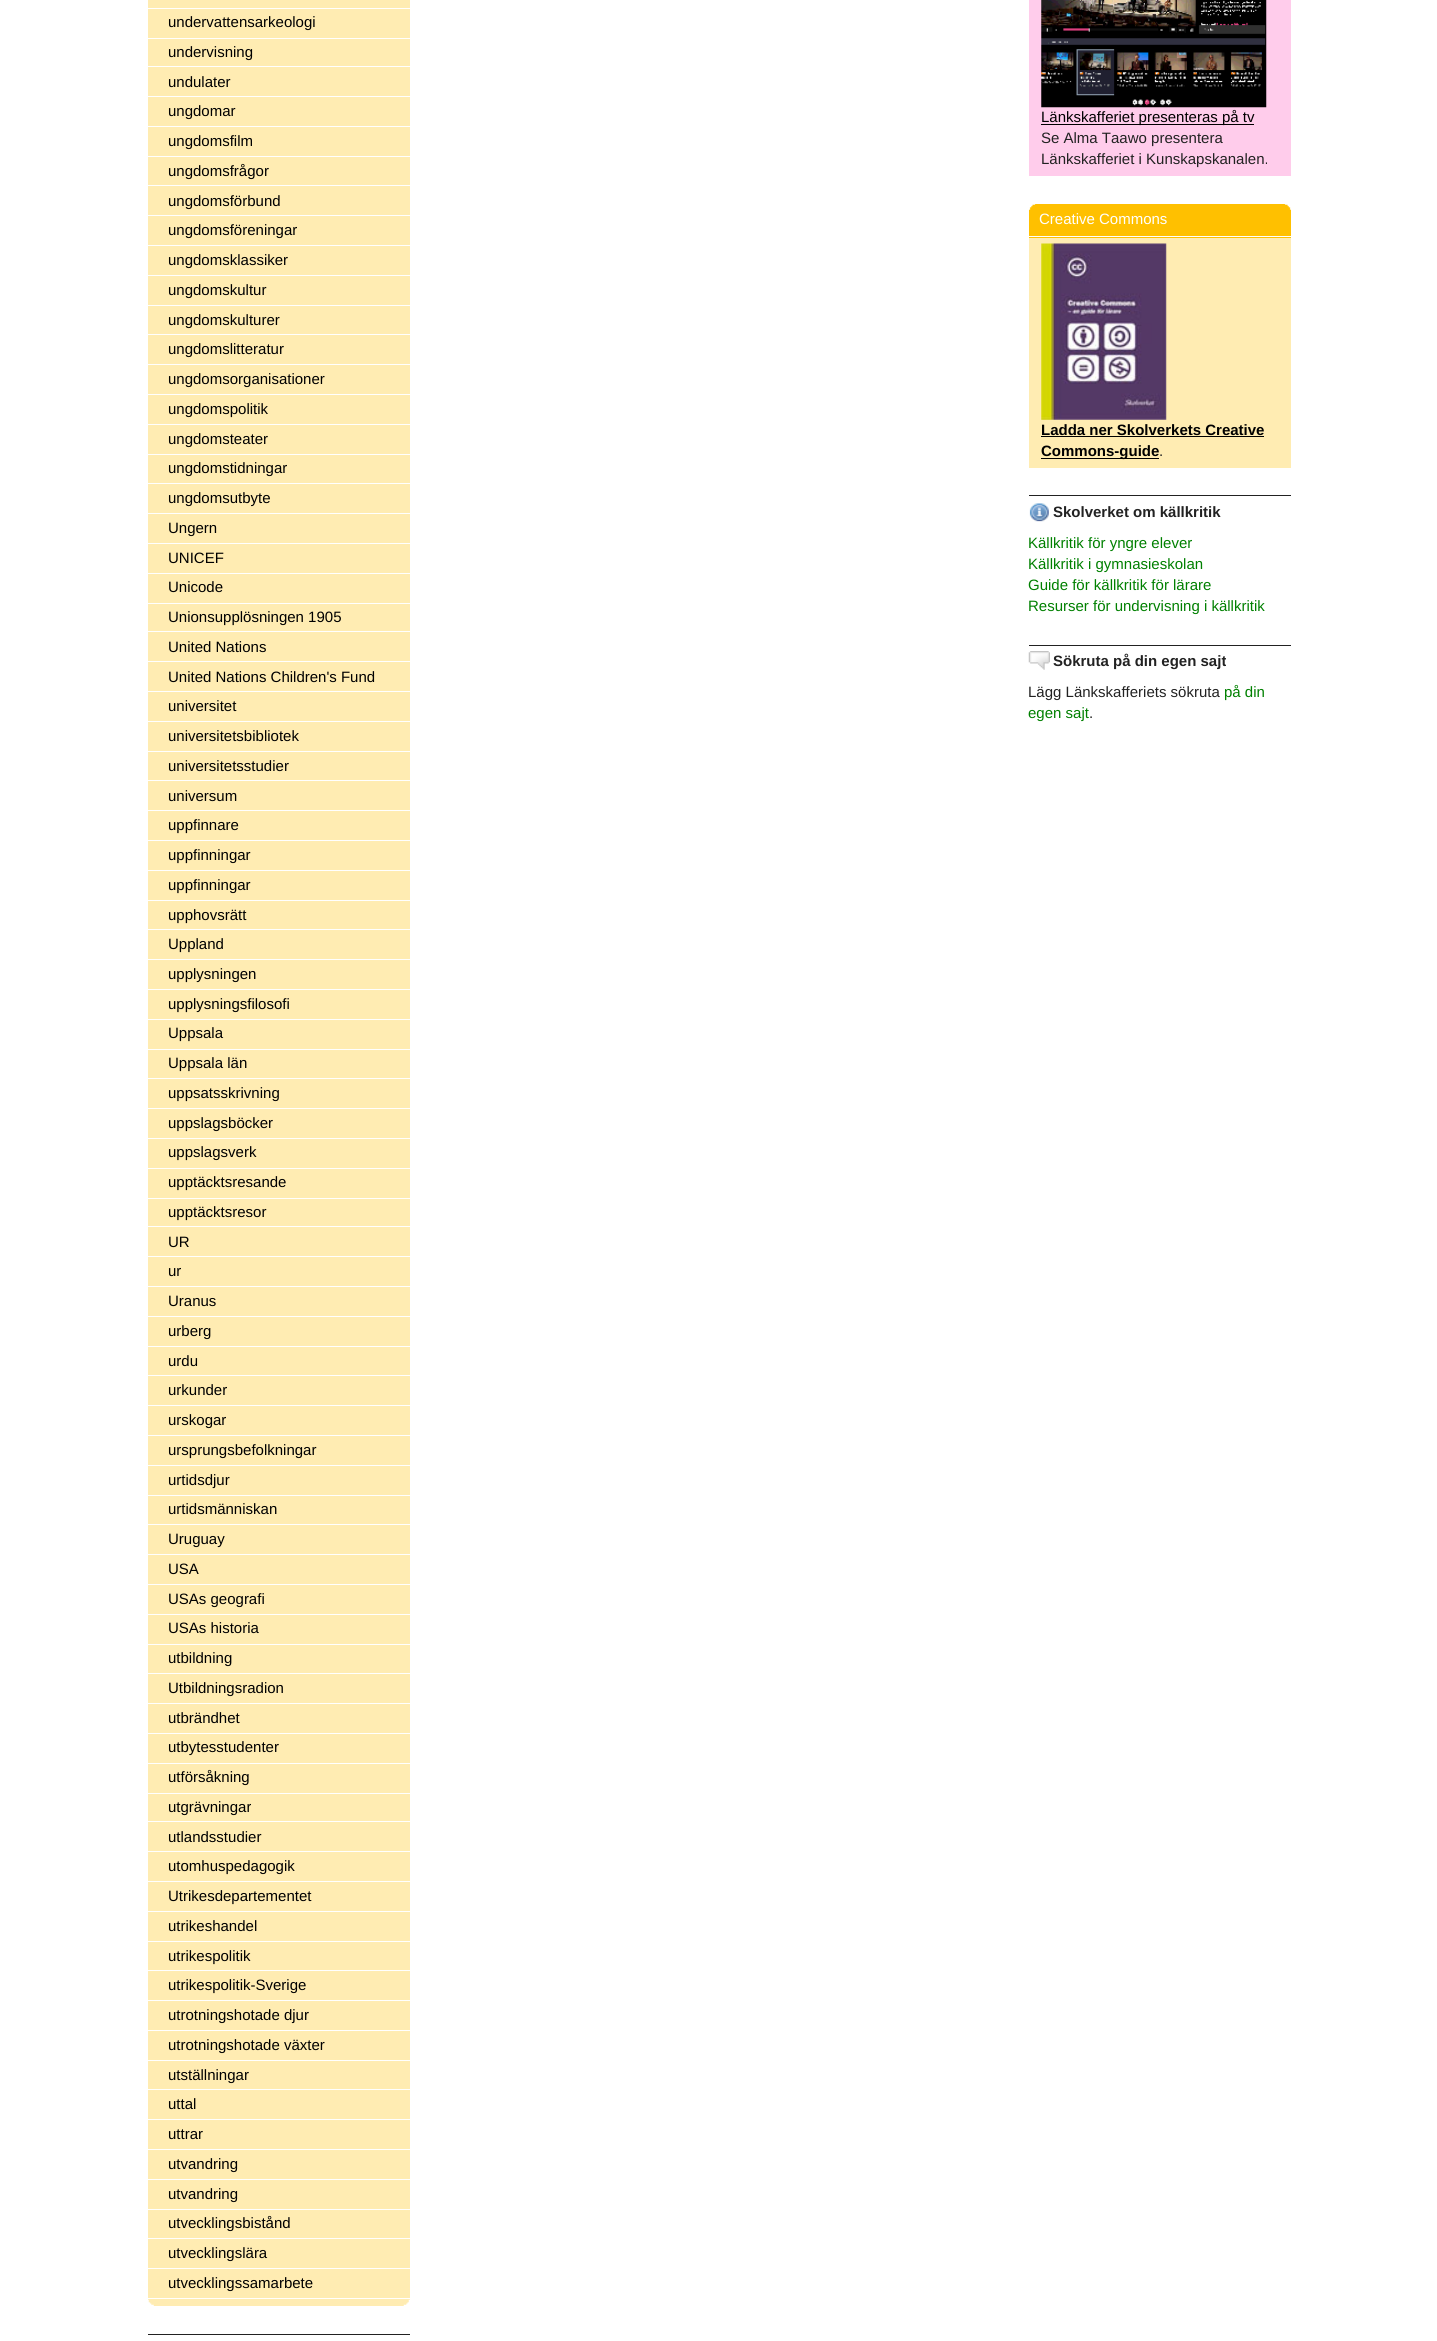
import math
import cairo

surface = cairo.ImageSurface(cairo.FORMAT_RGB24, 1437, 2341)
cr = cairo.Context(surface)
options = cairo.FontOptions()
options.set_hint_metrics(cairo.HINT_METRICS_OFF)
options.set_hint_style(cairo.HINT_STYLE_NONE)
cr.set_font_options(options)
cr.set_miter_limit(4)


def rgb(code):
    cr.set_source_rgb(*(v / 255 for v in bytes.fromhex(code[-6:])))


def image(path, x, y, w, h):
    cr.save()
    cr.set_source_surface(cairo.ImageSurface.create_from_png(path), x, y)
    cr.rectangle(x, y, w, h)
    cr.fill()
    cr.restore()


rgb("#ffffff")
cr.paint()
for x, y, w, h, color in [
    (148, 0, 262, 2306, "#ffecb2"),
    (148, 8, 262, 1, "#ffffff"),
    (148, 38, 262, 1, "#ffffff"),
    (148, 66, 262, 1, "#ffffff"),
    (148, 96, 262, 1, "#ffffff"),
    (148, 126, 262, 1, "#ffffff"),
    (148, 156, 262, 1, "#ffffff"),
    (148, 185, 262, 1, "#ffffff"),
    (148, 215, 262, 1, "#ffffff"),
    (148, 245, 262, 1, "#ffffff"),
    (148, 275, 262, 1, "#ffffff"),
    (148, 305, 262, 1, "#ffffff"),
    (148, 334, 262, 1, "#ffffff"),
    (148, 364, 262, 1, "#ffffff"),
    (148, 394, 262, 1, "#ffffff"),
    (148, 424, 262, 1, "#ffffff"),
    (148, 454, 262, 1, "#ffffff"),
    (148, 483, 262, 1, "#ffffff"),
    (148, 513, 262, 1, "#ffffff"),
    (148, 543, 262, 1, "#ffffff"),
    (148, 573, 262, 1, "#ffffff"),
    (148, 603, 262, 1, "#ffffff"),
    (148, 631, 262, 1, "#ffffff"),
    (148, 661, 262, 1, "#ffffff"),
    (148, 691, 262, 1, "#ffffff"),
    (148, 721, 262, 1, "#ffffff"),
    (148, 751, 262, 1, "#ffffff"),
    (148, 780, 262, 1, "#ffffff"),
    (148, 810, 262, 1, "#ffffff"),
    (148, 840, 262, 1, "#ffffff"),
    (148, 870, 262, 1, "#ffffff"),
    (148, 900, 262, 1, "#ffffff"),
    (148, 929, 262, 1, "#ffffff"),
    (148, 959, 262, 1, "#ffffff"),
    (148, 989, 262, 1, "#ffffff"),
    (148, 1019, 262, 1, "#ffffff"),
    (148, 1049, 262, 1, "#ffffff"),
    (148, 1078, 262, 1, "#ffffff"),
    (148, 1108, 262, 1, "#ffffff"),
    (148, 1138, 262, 1, "#ffffff"),
    (148, 1168, 262, 1, "#ffffff"),
    (148, 1198, 262, 1, "#ffffff"),
    (148, 1226, 262, 1, "#ffffff"),
    (148, 1256, 262, 1, "#ffffff"),
    (148, 1286, 262, 1, "#ffffff"),
    (148, 1316, 262, 1, "#ffffff"),
    (148, 1346, 262, 1, "#ffffff"),
    (148, 1375, 262, 1, "#ffffff"),
    (148, 1405, 262, 1, "#ffffff"),
    (148, 1435, 262, 1, "#ffffff"),
    (148, 1465, 262, 1, "#ffffff"),
    (148, 1495, 262, 1, "#ffffff"),
    (148, 1524, 262, 1, "#ffffff"),
    (148, 1554, 262, 1, "#ffffff"),
    (148, 1584, 262, 1, "#ffffff"),
    (148, 1614, 262, 1, "#ffffff"),
    (148, 1644, 262, 1, "#ffffff"),
    (148, 1673, 262, 1, "#ffffff"),
    (148, 1703, 262, 1, "#ffffff"),
    (148, 1733, 262, 1, "#ffffff"),
    (148, 1763, 262, 1, "#ffffff"),
    (148, 1793, 262, 1, "#ffffff"),
    (148, 1821, 262, 1, "#ffffff"),
    (148, 1851, 262, 1, "#ffffff"),
    (148, 1881, 262, 1, "#ffffff"),
    (148, 1911, 262, 1, "#ffffff"),
    (148, 1941, 262, 1, "#ffffff"),
    (148, 1970, 262, 1, "#ffffff"),
    (148, 2000, 262, 1, "#ffffff"),
    (148, 2030, 262, 1, "#ffffff"),
    (148, 2060, 262, 1, "#ffffff"),
    (148, 2089, 262, 1, "#ffffff"),
    (148, 2119, 262, 1, "#ffffff"),
    (148, 2149, 262, 1, "#ffffff"),
    (148, 2179, 262, 1, "#ffffff"),
    (148, 2209, 262, 1, "#ffffff"),
    (148, 2238, 262, 1, "#ffffff"),
    (148, 2268, 262, 1, "#ffffff"),
    (148, 2298, 262, 1, "#ffffff"),
]:
    rgb(color)
    cr.rectangle(x, y, w, h)
    cr.fill()
image("img/1.png", 148, 2299, 262, 7)
rgb("#222222")
cr.rectangle(148, 2334, 262, 1)
cr.fill()
rgb("#ffcceb")
cr.rectangle(1029, 0, 262, 176)
cr.fill()
image("img/2.png", 1041, 0, 226, 108)
for x, y, w, h, color in [
    (1041, 124, 213, 1, "#000000"),
    (1029, 238, 262, 230, "#ffecb2"),
    (1029, 204, 262, 34, "#ffc000"),
]:
    rgb(color)
    cr.rectangle(x, y, w, h)
    cr.fill()
image("img/3.png", 1029, 204, 262, 6)
rgb("#ffffff")
cr.rectangle(1029, 236, 262, 1)
cr.fill()
image("img/4.png", 1041, 243, 126, 177)
rgb("#000000")
cr.rectangle(1041, 436, 223, 1)
cr.fill()
cr.rectangle(1041, 458, 118, 1)
cr.fill()
image("img/5.png", 1029, 503, 20, 19)
rgb("#222222")
cr.rectangle(1029, 495, 262, 1)
cr.fill()
image("img/6.png", 1028, 651, 22, 19)
cr.rectangle(1029, 645, 262, 1)
cr.fill()
cr.select_font_face("Liberation Sans")
cr.set_font_size(15)
rgb("#000000")
for x, y, s in [
    (168, 27, "undervattensarkeologi"),
    (168, 57, "undervisning"),
    (168, 87, "undulater"),
    (168, 116, "ungdomar"),
    (168, 146, "ungdomsfilm"),
    (168, 176, "ungdomsfrågor"),
    (168, 206, "ungdomsförbund"),
    (168, 235, "ungdomsföreningar"),
    (168, 265, "ungdomsklassiker"),
    (168, 295, "ungdomskultur"),
    (168, 325, "ungdomskulturer"),
    (168, 354, "ungdomslitteratur"),
    (168, 384, "ungdomsorganisationer"),
    (168, 414, "ungdomspolitik"),
    (168, 444, "ungdomsteater"),
    (168, 473, "ungdomstidningar"),
    (168, 503, "ungdomsutbyte"),
    (168, 533, "Ungern"),
    (168, 563, "UNICEF"),
    (168, 592, "Unicode"),
    (168, 622, "Unionsupplösningen 1905"),
    (168, 652, "United Nations"),
    (168, 682, "United Nations Children's Fund"),
    (168, 711, "universitet"),
    (168, 741, "universitetsbibliotek"),
    (168, 771, "universitetsstudier"),
    (168, 801, "universum"),
    (168, 830, "uppfinnare"),
    (168, 860, "uppfinningar"),
    (168, 890, "uppfinningar"),
    (168, 920, "upphovsrätt"),
    (168, 949, "Uppland"),
    (168, 979, "upplysningen"),
    (168, 1009, "upplysningsfilosofi"),
    (168, 1038, "Uppsala"),
    (168, 1068, "Uppsala län"),
    (168, 1098, "uppsatsskrivning"),
    (168, 1128, "uppslagsböcker"),
    (168, 1157, "uppslagsverk"),
    (168, 1187, "upptäcktsresande"),
    (168, 1217, "upptäcktsresor"),
    (168, 1247, "UR"),
    (168, 1276, "ur"),
    (168, 1306, "Uranus"),
    (168, 1336, "urberg"),
    (168, 1366, "urdu"),
    (168, 1395, "urkunder"),
    (168, 1425, "urskogar"),
    (168, 1455, "ursprungsbefolkningar"),
    (168, 1485, "urtidsdjur"),
    (168, 1514, "urtidsmänniskan"),
    (168, 1544, "Uruguay"),
    (168, 1574, "USA"),
    (168, 1604, "USAs geografi"),
    (168, 1633, "USAs historia"),
    (168, 1663, "utbildning"),
    (168, 1693, "Utbildningsradion"),
    (168, 1723, "utbrändhet"),
    (168, 1752, "utbytesstudenter"),
    (168, 1782, "utförsåkning"),
    (168, 1812, "utgrävningar"),
    (168, 1842, "utlandsstudier"),
    (168, 1871, "utomhuspedagogik"),
    (168, 1901, "Utrikesdepartementet"),
    (168, 1931, "utrikeshandel"),
    (168, 1961, "utrikespolitik"),
    (168, 1990, "utrikespolitik-Sverige"),
    (168, 2020, "utrotningshotade djur"),
    (168, 2050, "utrotningshotade växter"),
    (168, 2080, "utställningar"),
    (168, 2109, "uttal"),
    (168, 2139, "uttrar"),
    (168, 2169, "utvandring"),
    (168, 2199, "utvandring"),
    (168, 2228, "utvecklingsbistånd"),
    (168, 2258, "utvecklingslära"),
    (168, 2288, "utvecklingssamarbete"),
    (1041, 122, "Länkskafferiet presenteras på tv"),
]:
    cr.move_to(x, y)
    cr.show_text(s)
rgb("#222222")
cr.move_to(1041, 143)
cr.show_text("Se Alma Taawo presentera")
cr.move_to(1041, 164)
cr.show_text("Länkskafferiet i Kunskapskanalen.")
rgb("#ffffff")
cr.move_to(1039, 224)
cr.show_text("Creative Commons")
cr.select_font_face("Liberation Sans", cairo.FONT_SLANT_NORMAL, cairo.FONT_WEIGHT_BOLD)
rgb("#000000")
cr.move_to(1041, 435)
cr.show_text("Ladda ner Skolverkets Creative")
cr.move_to(1041, 456)
cr.show_text("Commons-guide")
cr.select_font_face("Liberation Sans")
rgb("#222222")
cr.move_to(1159, 456)
cr.show_text(".")
cr.select_font_face("Liberation Sans", cairo.FONT_SLANT_NORMAL, cairo.FONT_WEIGHT_BOLD)
cr.move_to(1053, 517)
cr.show_text("Skolverket om källkritik")
cr.select_font_face("Liberation Sans")
rgb("#008000")
for x, y, s in [
    (1028, 548, "Källkritik för yngre elever"),
    (1028, 569, "Källkritik i gymnasieskolan"),
    (1028, 590, "Guide för källkritik för lärare"),
    (1028, 611, "Resurser för undervisning i källkritik"),
]:
    cr.move_to(x, y)
    cr.show_text(s)
cr.select_font_face("Liberation Sans", cairo.FONT_SLANT_NORMAL, cairo.FONT_WEIGHT_BOLD)
rgb("#222222")
cr.move_to(1053, 666)
cr.show_text("Sökruta på din egen sajt")
cr.select_font_face("Liberation Sans")
cr.move_to(1028, 697)
cr.show_text("Lägg Länkskafferiets sökruta")
rgb("#008000")
cr.move_to(1224, 697)
cr.show_text("på din")
cr.move_to(1028, 718)
cr.show_text("egen sajt")
rgb("#222222")
cr.move_to(1089, 718)
cr.show_text(".")
surface.write_to_png("page.png")
